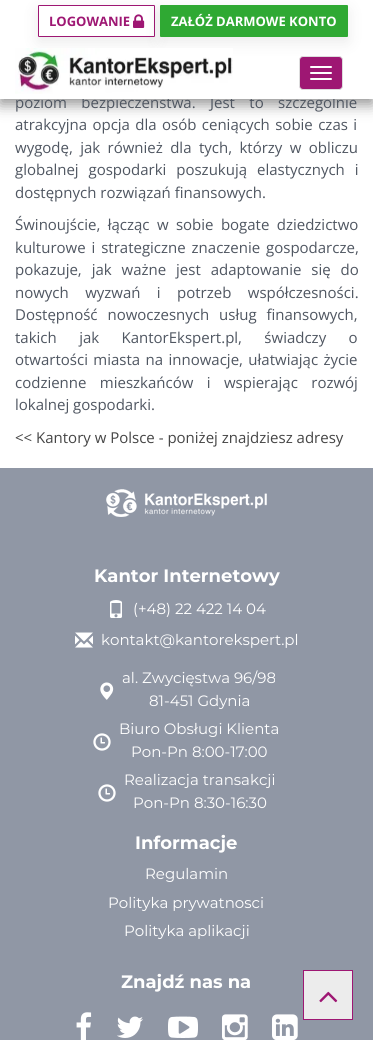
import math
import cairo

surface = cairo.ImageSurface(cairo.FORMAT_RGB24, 373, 1040)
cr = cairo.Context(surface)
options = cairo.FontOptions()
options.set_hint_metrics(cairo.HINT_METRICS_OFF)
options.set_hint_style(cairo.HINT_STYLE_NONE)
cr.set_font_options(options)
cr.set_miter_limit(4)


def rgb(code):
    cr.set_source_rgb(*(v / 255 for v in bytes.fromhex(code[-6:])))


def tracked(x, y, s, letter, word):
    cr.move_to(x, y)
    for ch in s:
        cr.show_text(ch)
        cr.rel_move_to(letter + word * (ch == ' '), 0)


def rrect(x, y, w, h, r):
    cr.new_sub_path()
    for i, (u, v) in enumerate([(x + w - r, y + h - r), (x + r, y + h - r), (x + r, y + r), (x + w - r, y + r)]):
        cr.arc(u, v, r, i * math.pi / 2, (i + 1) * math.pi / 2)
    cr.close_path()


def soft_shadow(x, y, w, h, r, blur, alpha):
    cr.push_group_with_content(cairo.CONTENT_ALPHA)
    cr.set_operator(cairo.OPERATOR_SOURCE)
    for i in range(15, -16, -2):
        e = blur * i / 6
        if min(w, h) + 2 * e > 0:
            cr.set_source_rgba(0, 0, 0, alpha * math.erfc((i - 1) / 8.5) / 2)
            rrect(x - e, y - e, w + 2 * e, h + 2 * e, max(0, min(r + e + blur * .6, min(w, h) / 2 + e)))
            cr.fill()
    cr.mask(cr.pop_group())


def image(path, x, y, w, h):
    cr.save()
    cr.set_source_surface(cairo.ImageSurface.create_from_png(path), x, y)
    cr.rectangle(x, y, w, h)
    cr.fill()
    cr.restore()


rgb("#ffffff")
cr.paint()
rgb("#323232")
soft_shadow(0, 5, 373, 99, 0, 7.5, 0.55)
rgb("#9097a5")
cr.rectangle(0, 468, 373, 572)
cr.fill()
image("img/3.png", 106, 489, 161, 28)
image("img/4.png", 110, 600, 12, 18)
image("img/5.png", 75, 632, 18, 16)
image("img/6.png", 100, 682, 14, 18)
image("img/7.png", 93, 733, 18, 18)
image("img/7.png", 98, 784, 18, 18)
image("img/8.png", 76, 1012, 16, 28)
image("img/9.png", 117, 1016, 26, 22)
image("img/10.png", 168, 1016, 30, 22)
image("img/11.png", 222, 1014, 26, 26)
image("img/12.png", 272, 1014, 26, 26)
rgb("#ececec")
cr.rectangle(303.5, 970.5, 49, 49)
cr.fill_preserve()
rgb("#9e1773")
cr.set_line_width(1)
cr.stroke()
image("img/13.png", 319, 991, 19, 12)
cr.select_font_face("Open Sans")
cr.set_font_size(15)
rgb("#4f5661")
tracked(15, 108, "poziom bezpieczeństwa. Jest to szczególnie", 0, 10.5)
rgb("#ffffff")
cr.rectangle(0, 0, 373, 99)
cr.fill()
cr.save()
cr.set_fill_rule(cairo.FILL_RULE_EVEN_ODD)
cr.new_path()
cr.move_to(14, 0)
cr.line_to(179, 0)
cr.line_to(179, 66)
cr.line_to(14, 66)
cr.close_path()
cr.move_to(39, 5)
cr.line_to(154, 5)
cr.curve_to(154.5, 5, 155, 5.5, 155, 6)
cr.line_to(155, 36)
cr.curve_to(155, 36.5, 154.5, 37, 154, 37)
cr.line_to(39, 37)
cr.curve_to(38.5, 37, 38, 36.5, 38, 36)
cr.line_to(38, 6)
cr.curve_to(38, 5.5, 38.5, 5, 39, 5)
cr.close_path()
cr.clip()
rgb("#323232")
soft_shadow(38, 10, 117, 32, 1, 7.5, 0.1)
cr.restore()
rrect(38.5, 5.5, 116, 31, 0.5)
rgb("#9e1773")
cr.stroke()
rgb("#323232")
soft_shadow(160, 10, 188, 32, 1, 7.5, 0.1)
image("img/2.png", 15, 48, 218, 46)
rgb("#9e1773")
rrect(299.5, 56.5, 43, 33, 3.5)
cr.fill_preserve()
rgb("#dddddd")
cr.stroke()
rgb("#ffffff")
rrect(310, 78, 22, 2, 1)
cr.fill()
rrect(310, 72, 22, 2, 1)
cr.fill()
rrect(310, 66, 22, 2, 1)
cr.fill()
image("img/1.png", 133, 14, 12, 14)
rgb("#2fa933")
rrect(160.5, 5.5, 187, 31, 0.5)
cr.fill_preserve()
cr.stroke()
cr.select_font_face("Open Sans", cairo.FONT_SLANT_NORMAL, cairo.FONT_WEIGHT_BOLD)
cr.set_font_size(13)
rgb("#ffffff")
cr.move_to(171, 26)
cr.show_text("ZAŁÓŻ DARMOWE KONTO")
rgb("#9e1773")
cr.move_to(49, 26)
cr.show_text("LOGOWANIE")
cr.select_font_face("Open Sans")
cr.set_font_size(15)
rgb("#4f5661")
tracked(15, 130, "atrakcyjna opcja dla osób ceniących sobie czas i", 0, 1.5)
tracked(15, 153, "wygodę, jak również dla tych, którzy w obliczu", 0, 3.5)
tracked(15, 175, "globalnej gospodarki poszukują elastycznych i", 0, 6)
cr.move_to(15, 198)
cr.show_text("dostępnych rozwiązań finansowych.")
tracked(15, 230, "Świnoujście, łącząc w sobie bogate dziedzictwo", 0, 3.5)
tracked(15, 253, "kulturowe i strategiczne znaczenie gospodarcze,", 0, 2)
tracked(15, 275, "pokazuje, jak ważne jest adaptowanie się do", 0, 6)
tracked(15, 298, "nowych wyzwań i potrzeb współczesności.", 0, 12.5)
tracked(15, 320, "Dostępność nowoczesnych usług finansowych,", 0, 6)
tracked(15, 343, "takich jak KantorEkspert.pl, świadczy o", 0, 18.5)
tracked(15, 365, "otwartości miasta na innowacje, ułatwiając życie", 0, 1.5)
tracked(15, 388, "codzienne mieszkańców i wspierając rozwój", 0, 9.5)
cr.move_to(15, 410)
cr.show_text("lokalnej gospodarki.")
rgb("#454545")
cr.move_to(15, 443)
cr.show_text("<< Kantory w Polsce - poniżej znajdziesz adresy")
cr.select_font_face("Montserrat", cairo.FONT_SLANT_NORMAL, cairo.FONT_WEIGHT_BOLD)
cr.set_font_size(18)
rgb("#ffffff")
cr.move_to(94, 582)
cr.show_text("Kantor Internetowy")
cr.select_font_face("Montserrat")
cr.set_font_size(15)
for x, y, s in [
    (133, 614, "(+48) 22 422 14 04"),
    (101, 645, "kontakt@kantorekspert.pl"),
    (122, 683, "al. Zwycięstwa 96/98"),
    (149, 706, "81-451 Gdynia"),
    (119, 734, "Biuro Obsługi Klienta"),
    (131, 757, "Pon-Pn 8:00-17:00"),
    (124, 785, "Realizacja transakcji"),
    (133, 808, "Pon-Pn 8:30-16:30"),
]:
    cr.move_to(x, y)
    cr.show_text(s)
cr.select_font_face("Montserrat", cairo.FONT_SLANT_NORMAL, cairo.FONT_WEIGHT_BOLD)
cr.set_font_size(18)
cr.move_to(135, 849)
cr.show_text("Informacje")
cr.select_font_face("Montserrat")
cr.set_font_size(15)
for x, y, s in [
    (145, 879, "Regulamin"),
    (108, 908, "Polityka prywatnosci"),
    (124, 936, "Polityka aplikacji"),
]:
    cr.move_to(x, y)
    cr.show_text(s)
cr.select_font_face("Montserrat", cairo.FONT_SLANT_NORMAL, cairo.FONT_WEIGHT_BOLD)
cr.set_font_size(18)
cr.move_to(121, 988)
cr.show_text("Znajdź nas na")
surface.write_to_png("page.png")
